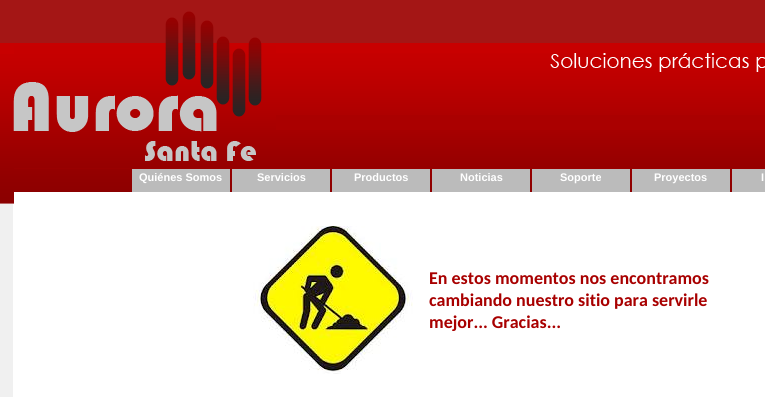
import math
import cairo

surface = cairo.ImageSurface(cairo.FORMAT_RGB24, 765, 397)
cr = cairo.Context(surface)
options = cairo.FontOptions()
options.set_hint_metrics(cairo.HINT_METRICS_OFF)
options.set_hint_style(cairo.HINT_STYLE_NONE)
cr.set_font_options(options)
cr.set_miter_limit(4)


def rgb(code):
    cr.set_source_rgb(*(v / 255 for v in bytes.fromhex(code[-6:])))


def image(path, x, y, w, h):
    cr.save()
    cr.set_source_surface(cairo.ImageSurface.create_from_png(path), x, y)
    cr.rectangle(x, y, w, h)
    cr.fill()
    cr.restore()


rgb("#f0f0f0")
cr.paint()
image("img/1.png", 0, 0, 765, 192)
image("img/2.png", 165, 11, 96, 32)
image("img/3.png", 0, 54, 14, 343)
image("img/4.png", 14, 43, 262, 125)
image("img/5.png", 276, 53, 489, 62)
image("img/6.png", 276, 130, 489, 38)
image("img/7.png", 14, 169, 718, 22)
for x, y, w, h, color in [
    (132, 169, 98, 23, "#bbbbbb"),
    (232, 169, 98, 23, "#bbbbbb"),
    (332, 169, 98, 23, "#bbbbbb"),
    (432, 169, 98, 23, "#bbbbbb"),
    (532, 169, 98, 23, "#bbbbbb"),
    (632, 169, 98, 23, "#bbbbbb"),
    (732, 169, 33, 23, "#bbbbbb"),
    (14, 192, 751, 205, "#ffffff"),
]:
    rgb(color)
    cr.rectangle(x, y, w, h)
    cr.fill()
image("img/8.png", 253, 226, 160, 148)
cr.select_font_face("Liberation Sans", cairo.FONT_SLANT_NORMAL, cairo.FONT_WEIGHT_BOLD)
cr.set_font_size(11)
for x, y, s in [
    (139, 181, "Quiénes Somos"),
    (257, 181, "Servicios"),
    (354, 181, "Productos"),
    (460, 181, "Noticias"),
    (560, 181, "Soporte"),
    (654, 181, "Proyectos"),
    (761, 181, "I"),
]:
    cr.move_to(x, y)
    cr.show_text(s)
cr.select_font_face("Carlito", cairo.FONT_SLANT_NORMAL, cairo.FONT_WEIGHT_BOLD)
cr.set_font_size(18)
rgb("#a80000")
for x, y, s in [
    (429, 284, "En estos momentos nos encontramos"),
    (429, 306, "cambiando nuestro sitio para servirle"),
    (429, 328, "mejor... Gracias..."),
]:
    cr.move_to(x, y)
    cr.show_text(s)
surface.write_to_png("page.png")
